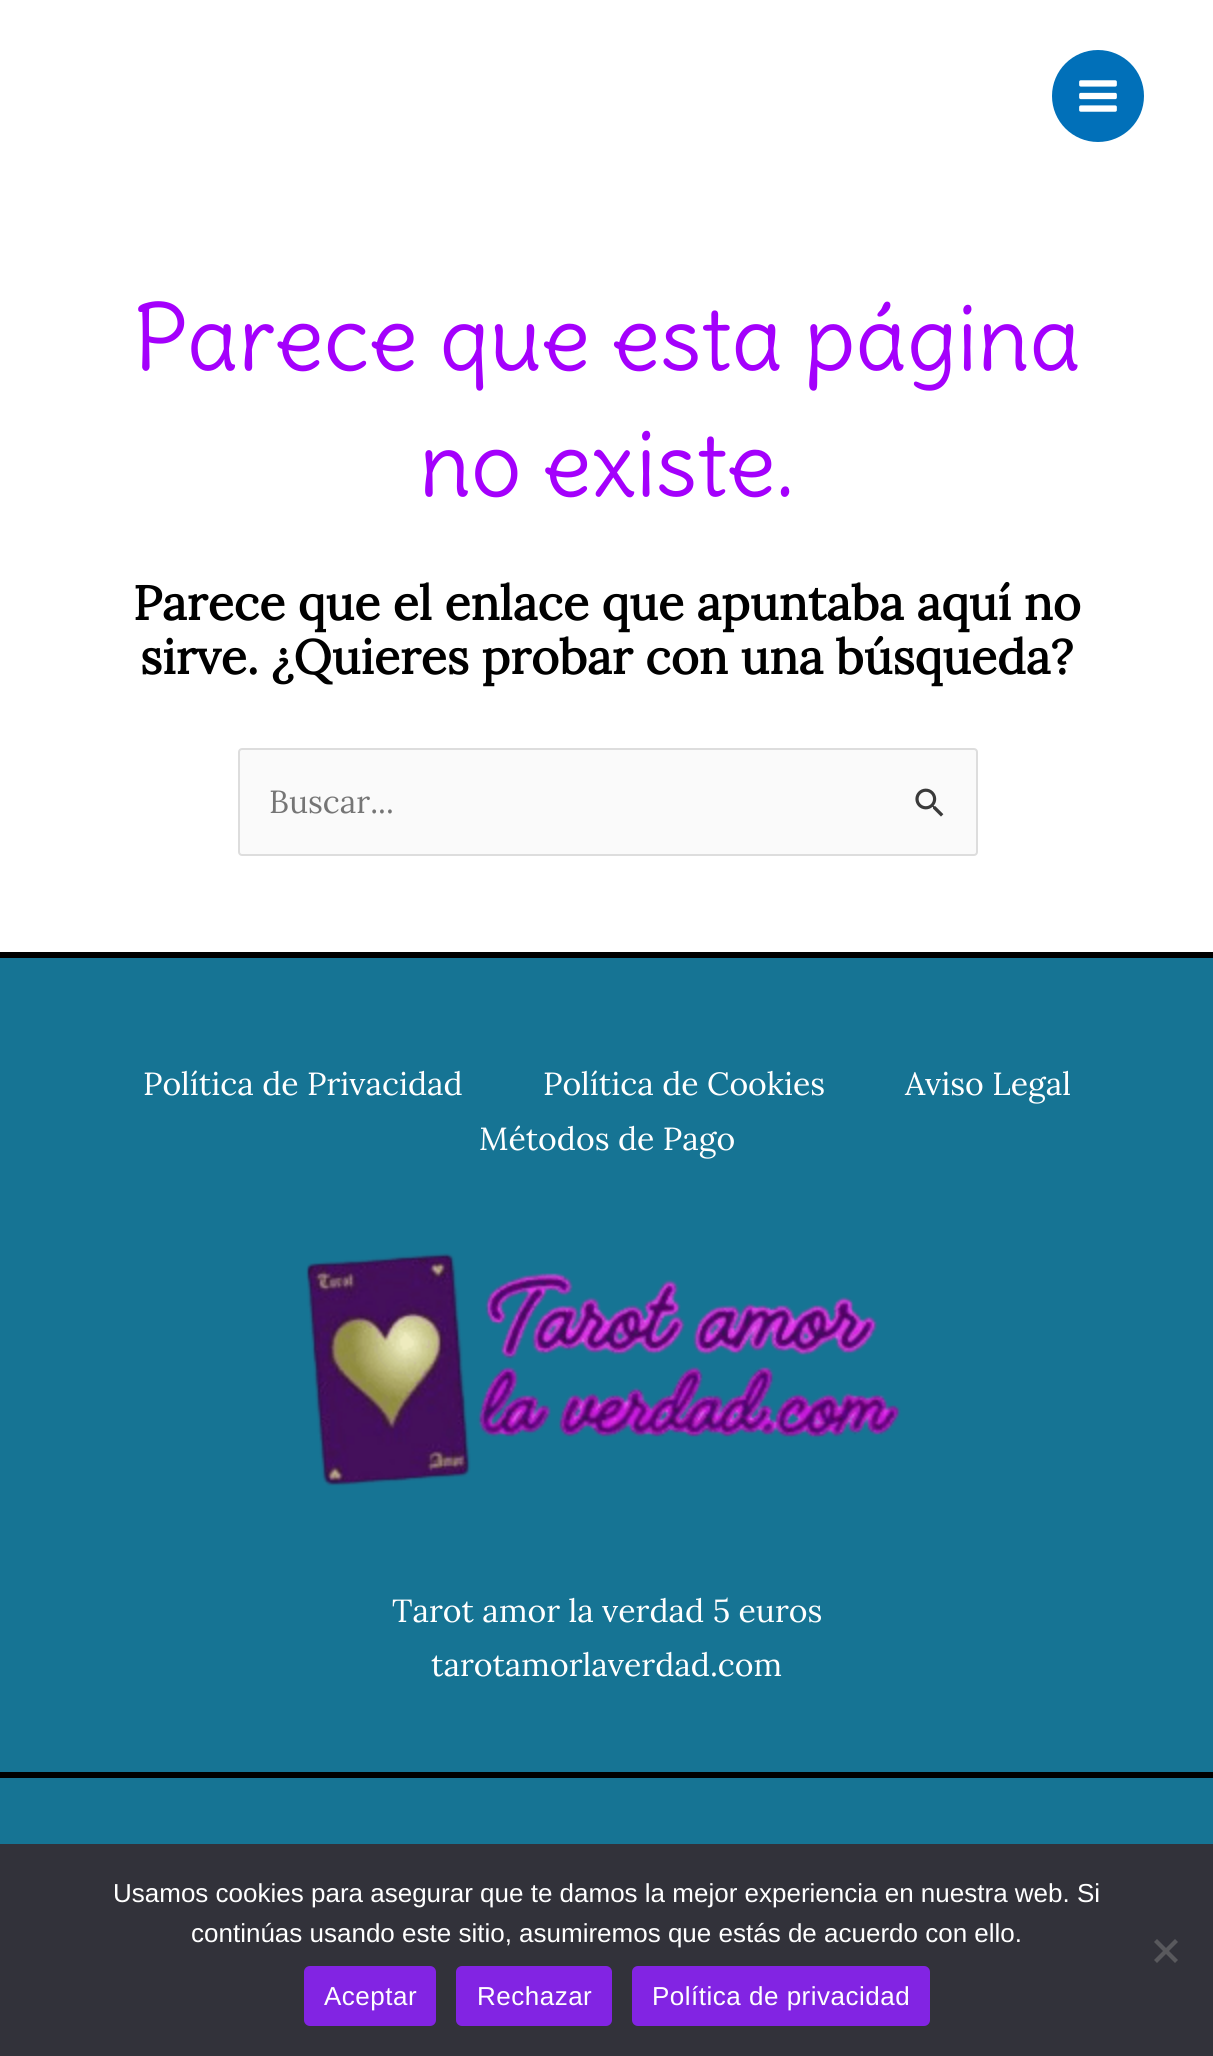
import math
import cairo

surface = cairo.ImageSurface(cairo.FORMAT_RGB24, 1213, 2056)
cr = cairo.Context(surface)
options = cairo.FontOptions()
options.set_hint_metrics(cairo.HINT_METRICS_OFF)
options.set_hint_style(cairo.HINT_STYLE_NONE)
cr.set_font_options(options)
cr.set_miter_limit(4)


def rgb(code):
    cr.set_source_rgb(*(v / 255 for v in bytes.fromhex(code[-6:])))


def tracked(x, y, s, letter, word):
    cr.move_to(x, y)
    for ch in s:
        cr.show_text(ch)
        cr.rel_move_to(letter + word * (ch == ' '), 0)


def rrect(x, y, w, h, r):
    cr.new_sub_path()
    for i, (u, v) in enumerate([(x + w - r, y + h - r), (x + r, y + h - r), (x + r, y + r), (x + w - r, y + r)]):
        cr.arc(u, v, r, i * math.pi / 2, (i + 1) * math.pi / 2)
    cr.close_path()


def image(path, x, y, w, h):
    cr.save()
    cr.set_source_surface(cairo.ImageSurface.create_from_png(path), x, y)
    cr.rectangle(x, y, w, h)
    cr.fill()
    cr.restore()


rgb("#ffffff")
cr.paint()
rgb("#0170b9")
cr.arc(1098, 96, 46, 0, 2 * math.pi)
cr.fill()
image("img/1.png", 1079, 80, 38, 32)
rgb("#fafafa")
rrect(239, 749, 738, 106, 3)
cr.fill_preserve()
rgb("#dddddd")
cr.stroke()
image("img/2.png", 915, 788, 29, 29)
rgb("#167494")
cr.rectangle(0, 958, 1213, 814)
cr.fill()
rgb("#000000")
cr.rectangle(0, 952, 1213, 6)
cr.fill()
image("img/3.png", 306, 1253, 595, 233)
for x, y, w, h, color in [
    (0, 1778, 1213, 66, "#167494"),
    (0, 1772, 1213, 6, "#000000"),
    (0, 1844, 1213, 212, "#32323a"),
]:
    rgb(color)
    cr.rectangle(x, y, w, h)
    cr.fill()
rgb("#59595d")
cr.new_path()
cr.move_to(1175, 1939)
cr.line_to(1178, 1942)
cr.line_to(1157, 1963)
cr.line_to(1154, 1960)
cr.close_path()
cr.fill()
cr.new_path()
cr.move_to(1154, 1942)
cr.line_to(1157, 1939)
cr.line_to(1178, 1960)
cr.line_to(1175, 1963)
cr.close_path()
cr.fill()
rgb("#8224e3")
rrect(304, 1966, 132, 60, 6)
cr.fill()
rrect(456, 1966, 156, 60, 6)
cr.fill()
rrect(632, 1966, 298, 60, 6)
cr.fill()
cr.select_font_face("Delius")
cr.set_font_size(90)
rgb("#a400fc")
cr.move_to(133, 370)
cr.show_text("Parece que esta página")
cr.move_to(419, 496)
cr.show_text("no existe.")
cr.select_font_face("Lora", cairo.FONT_SLANT_NORMAL, cairo.FONT_WEIGHT_BOLD)
cr.set_font_size(48)
rgb("#000000")
cr.move_to(133, 620)
cr.show_text("Parece que el enlace que apuntaba aquí no")
cr.move_to(140, 674)
cr.show_text("sirve. ¿Quieres probar con una búsqueda?")
cr.select_font_face("Lora")
cr.set_font_size(32)
rgb("#757575")
cr.move_to(269, 813)
cr.show_text("Buscar...")
rgb("#ffffff")
for x, y, s in [
    (143, 1095, "Política de Privacidad"),
    (543, 1095, "Política de Cookies"),
    (905, 1095, "Aviso Legal"),
    (479, 1150, "Métodos de Pago"),
    (392, 1622, "Tarot amor la verdad 5 euros"),
    (431, 1676, "tarotamorlaverdad.com"),
]:
    cr.move_to(x, y)
    cr.show_text(s)
cr.select_font_face("Liberation Sans")
cr.set_font_size(26)
cr.move_to(113, 1902)
cr.show_text("Usamos cookies para asegurar que te damos la mejor experiencia en nuestra web. Si")
cr.move_to(191, 1942)
cr.show_text("continúas usando este sitio, asumiremos que estás de acuerdo con ello.")
for x, y, s in [
    (324, 2005, "Aceptar"),
    (477, 2005, "Rechazar"),
    (652, 2005, "Política de privacidad"),
]:
    tracked(x, y, s, 0.5, 0)
surface.write_to_png("page.png")
